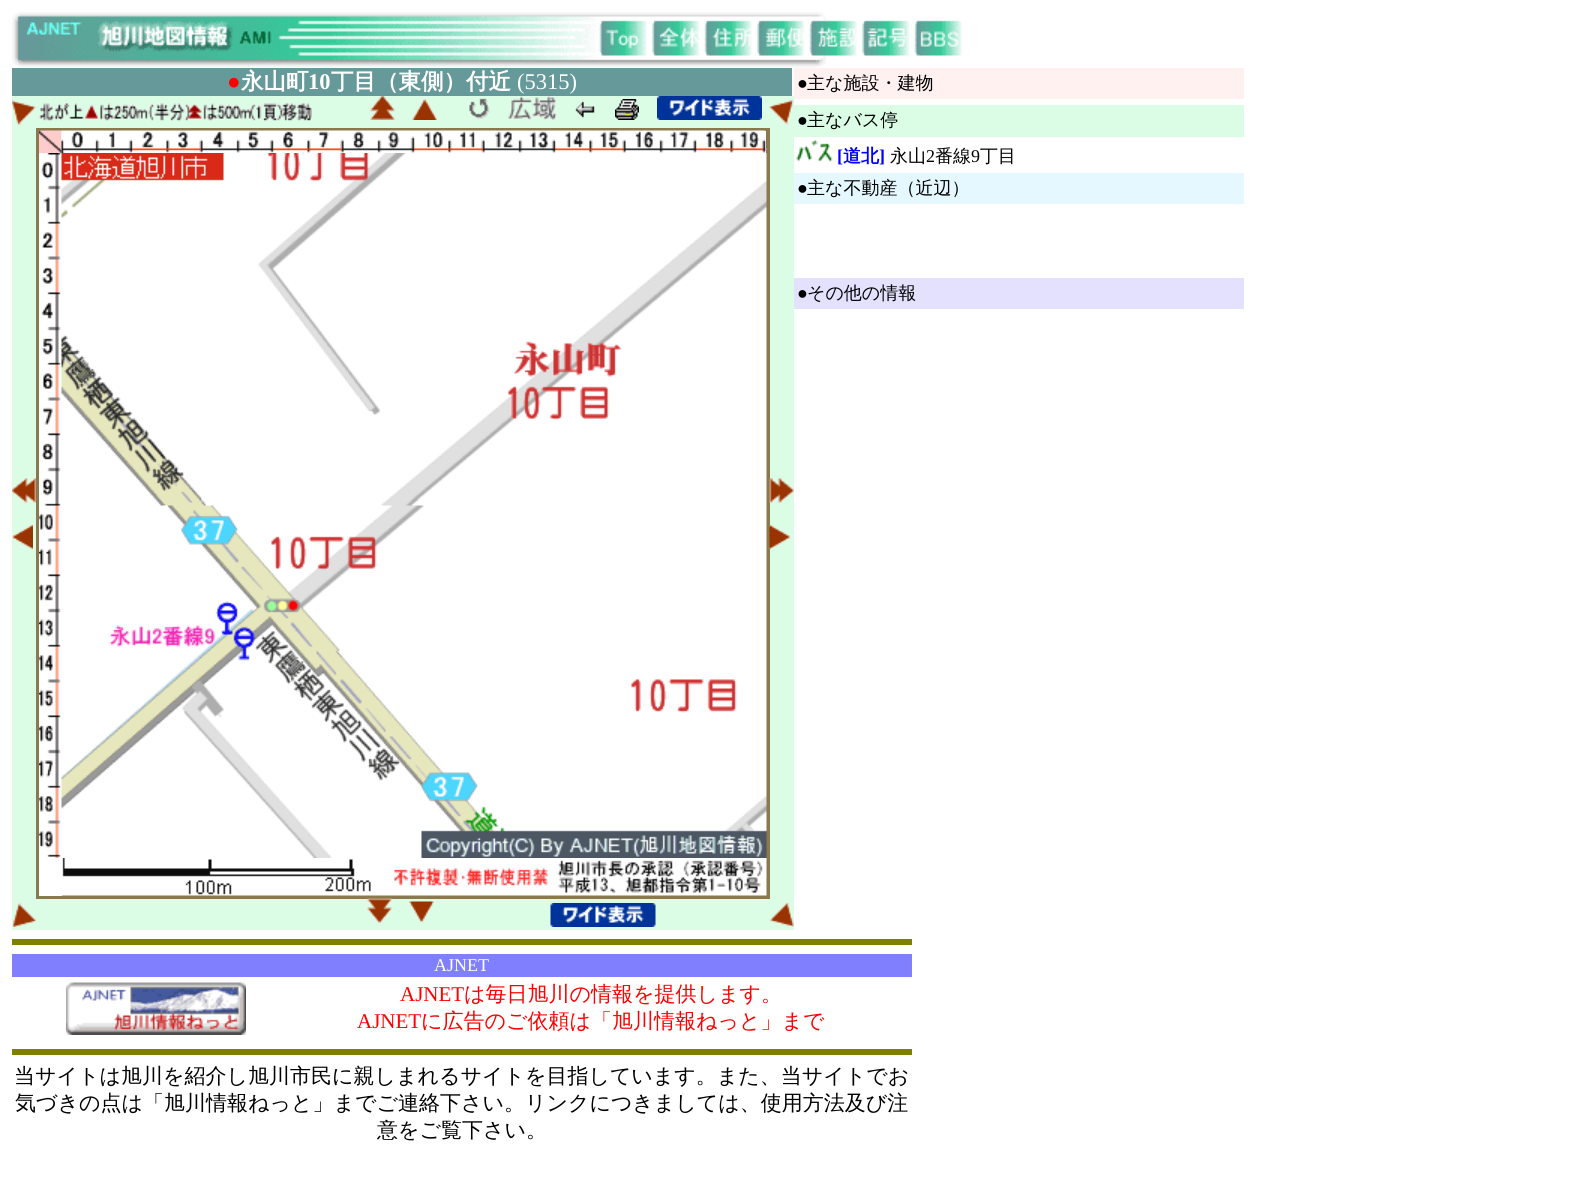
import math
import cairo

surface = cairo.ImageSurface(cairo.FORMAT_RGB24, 1585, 1177)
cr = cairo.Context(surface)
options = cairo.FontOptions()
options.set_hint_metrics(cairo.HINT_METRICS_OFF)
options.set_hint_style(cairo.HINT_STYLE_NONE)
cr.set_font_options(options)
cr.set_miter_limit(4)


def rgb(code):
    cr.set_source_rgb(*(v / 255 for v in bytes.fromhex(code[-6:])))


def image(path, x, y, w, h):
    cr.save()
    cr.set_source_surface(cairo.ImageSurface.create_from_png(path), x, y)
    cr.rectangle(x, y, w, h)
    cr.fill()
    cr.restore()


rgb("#ffffff")
cr.paint()
image("img/1.png", 12, 12, 950, 56)
rgb("#669999")
cr.rectangle(12, 68, 780, 28)
cr.fill()
rgb("#dbfde6")
cr.rectangle(12, 96, 782, 32)
cr.fill()
image("img/2.png", 12, 100, 24, 25)
image("img/3.png", 39, 103, 273, 19)
image("img/4.png", 370, 96, 25, 24)
image("img/5.png", 412, 99, 25, 21)
image("img/6.png", 469, 98, 21, 21)
image("img/7.png", 508, 96, 49, 24)
image("img/8.png", 575, 101, 20, 17)
image("img/9.png", 615, 99, 24, 21)
image("img/10.png", 657, 96, 105, 24)
image("img/11.png", 769, 100, 25, 25)
cr.rectangle(12, 128, 24, 802)
cr.fill()
image("img/12.png", 12, 478, 24, 25)
image("img/13.png", 12, 525, 21, 24)
cr.rectangle(37, 129, 732, 769)
rgb("#8b794e")
cr.stroke()
cr.rectangle(39, 130, 728, 766)
cr.stroke()
image("img/14.png", 39, 130, 23, 23)
image("img/15.png", 61, 130, 706, 23)
image("img/16.png", 39, 153, 22, 705)
image("img/17.png", 61, 153, 706, 705)
rgb("#ffffff")
cr.rectangle(39, 858, 23, 38)
cr.fill()
image("img/18.png", 62, 858, 705, 38)
rgb("#dbfde6")
cr.rectangle(770, 128, 24, 771)
cr.fill()
image("img/19.png", 769, 478, 25, 25)
image("img/20.png", 769, 525, 22, 24)
image("img/21.png", 12, 903, 24, 24)
cr.rectangle(36, 899, 758, 31)
cr.fill()
image("img/22.png", 367, 898, 25, 25)
image("img/23.png", 409, 901, 25, 22)
image("img/24.png", 550, 903, 106, 24)
image("img/25.png", 769, 903, 25, 24)
rgb("#fff1f0")
cr.rectangle(794, 68, 450, 31)
cr.fill()
rgb("#dbfde6")
cr.rectangle(794, 105, 450, 32)
cr.fill()
image("img/26.png", 796, 139, 37, 23)
for x, y, w, h, color in [
    (794, 173, 450, 31, "#e6f8ff"),
    (794, 278, 450, 31, "#e4e1ff"),
    (12, 939, 900, 6, "#808000"),
    (12, 954, 900, 23, "#8080ff"),
]:
    rgb(color)
    cr.rectangle(x, y, w, h)
    cr.fill()
image("img/27.png", 66, 982, 180, 53)
rgb("#808000")
cr.rectangle(12, 1049, 900, 6)
cr.fill()
cr.select_font_face("Liberation Serif", cairo.FONT_SLANT_NORMAL, cairo.FONT_WEIGHT_BOLD)
cr.set_font_size(22.5)
rgb("#ff0000")
cr.move_to(227, 89)
cr.show_text("●")
cr.select_font_face("WenQuanYi Zen Hei", cairo.FONT_SLANT_NORMAL, cairo.FONT_WEIGHT_BOLD)
rgb("#ffffff")
cr.move_to(241, 89)
cr.show_text("永山町")
cr.select_font_face("Liberation Serif", cairo.FONT_SLANT_NORMAL, cairo.FONT_WEIGHT_BOLD)
cr.move_to(308, 89)
cr.show_text("10")
cr.select_font_face("WenQuanYi Zen Hei", cairo.FONT_SLANT_NORMAL, cairo.FONT_WEIGHT_BOLD)
cr.move_to(331, 89)
cr.show_text("丁目（東側）付近")
cr.select_font_face("Liberation Serif")
cr.move_to(517, 89)
cr.show_text("(5315)")
cr.set_font_size(18)
rgb("#000000")
cr.move_to(797, 89)
cr.show_text("●")
cr.select_font_face("WenQuanYi Zen Hei Medium")
cr.move_to(807, 89)
cr.show_text("主な施設・建物")
cr.select_font_face("Liberation Serif")
cr.move_to(797, 126)
cr.show_text("●")
cr.select_font_face("WenQuanYi Zen Hei Medium")
cr.move_to(807, 126)
cr.show_text("主なバス停")
cr.select_font_face("Liberation Serif", cairo.FONT_SLANT_NORMAL, cairo.FONT_WEIGHT_BOLD)
rgb("#0000ff")
cr.move_to(837, 162)
cr.show_text("[")
cr.select_font_face("WenQuanYi Zen Hei", cairo.FONT_SLANT_NORMAL, cairo.FONT_WEIGHT_BOLD)
cr.move_to(843, 162)
cr.show_text("道北")
cr.select_font_face("Liberation Serif", cairo.FONT_SLANT_NORMAL, cairo.FONT_WEIGHT_BOLD)
cr.move_to(879, 162)
cr.show_text("]")
cr.select_font_face("WenQuanYi Zen Hei Medium")
rgb("#000000")
cr.move_to(890, 162)
cr.show_text("永山")
cr.select_font_face("Liberation Serif")
cr.move_to(926, 162)
cr.show_text("2")
cr.select_font_face("WenQuanYi Zen Hei Medium")
cr.move_to(935, 162)
cr.show_text("番線")
cr.select_font_face("Liberation Serif")
cr.move_to(971, 162)
cr.show_text("9")
cr.select_font_face("WenQuanYi Zen Hei Medium")
cr.move_to(980, 162)
cr.show_text("丁目")
cr.select_font_face("Liberation Serif")
cr.move_to(797, 194)
cr.show_text("●")
cr.select_font_face("WenQuanYi Zen Hei Medium")
cr.move_to(807, 194)
cr.show_text("主な不動産（近辺）")
cr.select_font_face("Liberation Serif")
cr.move_to(797, 299)
cr.show_text("●")
cr.select_font_face("WenQuanYi Zen Hei Medium")
cr.move_to(807, 299)
cr.show_text("その他の情報")
cr.select_font_face("Liberation Serif")
rgb("#fffff0")
cr.move_to(434, 971)
cr.show_text("AJNET")
cr.set_font_size(21)
rgb("#ff0000")
cr.move_to(400, 1001)
cr.show_text("AJNET")
cr.select_font_face("WenQuanYi Zen Hei Medium")
cr.move_to(464, 1001)
cr.show_text("は毎日旭川の情報を提供します。")
cr.select_font_face("Liberation Serif")
cr.move_to(357, 1028)
cr.show_text("AJNET")
cr.select_font_face("WenQuanYi Zen Hei Medium")
cr.move_to(421, 1028)
cr.show_text("に広告のご依頼は「旭川情報ねっと」まで")
rgb("#000000")
for x, y, s in [
    (14, 1083, "当サイトは旭川を紹介し旭川市民に親しまれるサイトを目指しています。また、当サイトでお"),
    (15, 1110, "気づきの点は「旭川情報ねっと」までご連絡下さい。リンクにつきましては、使用方法及び注"),
    (377, 1137, "意をご覧下さい。"),
]:
    cr.move_to(x, y)
    cr.show_text(s)
surface.write_to_png("page.png")
